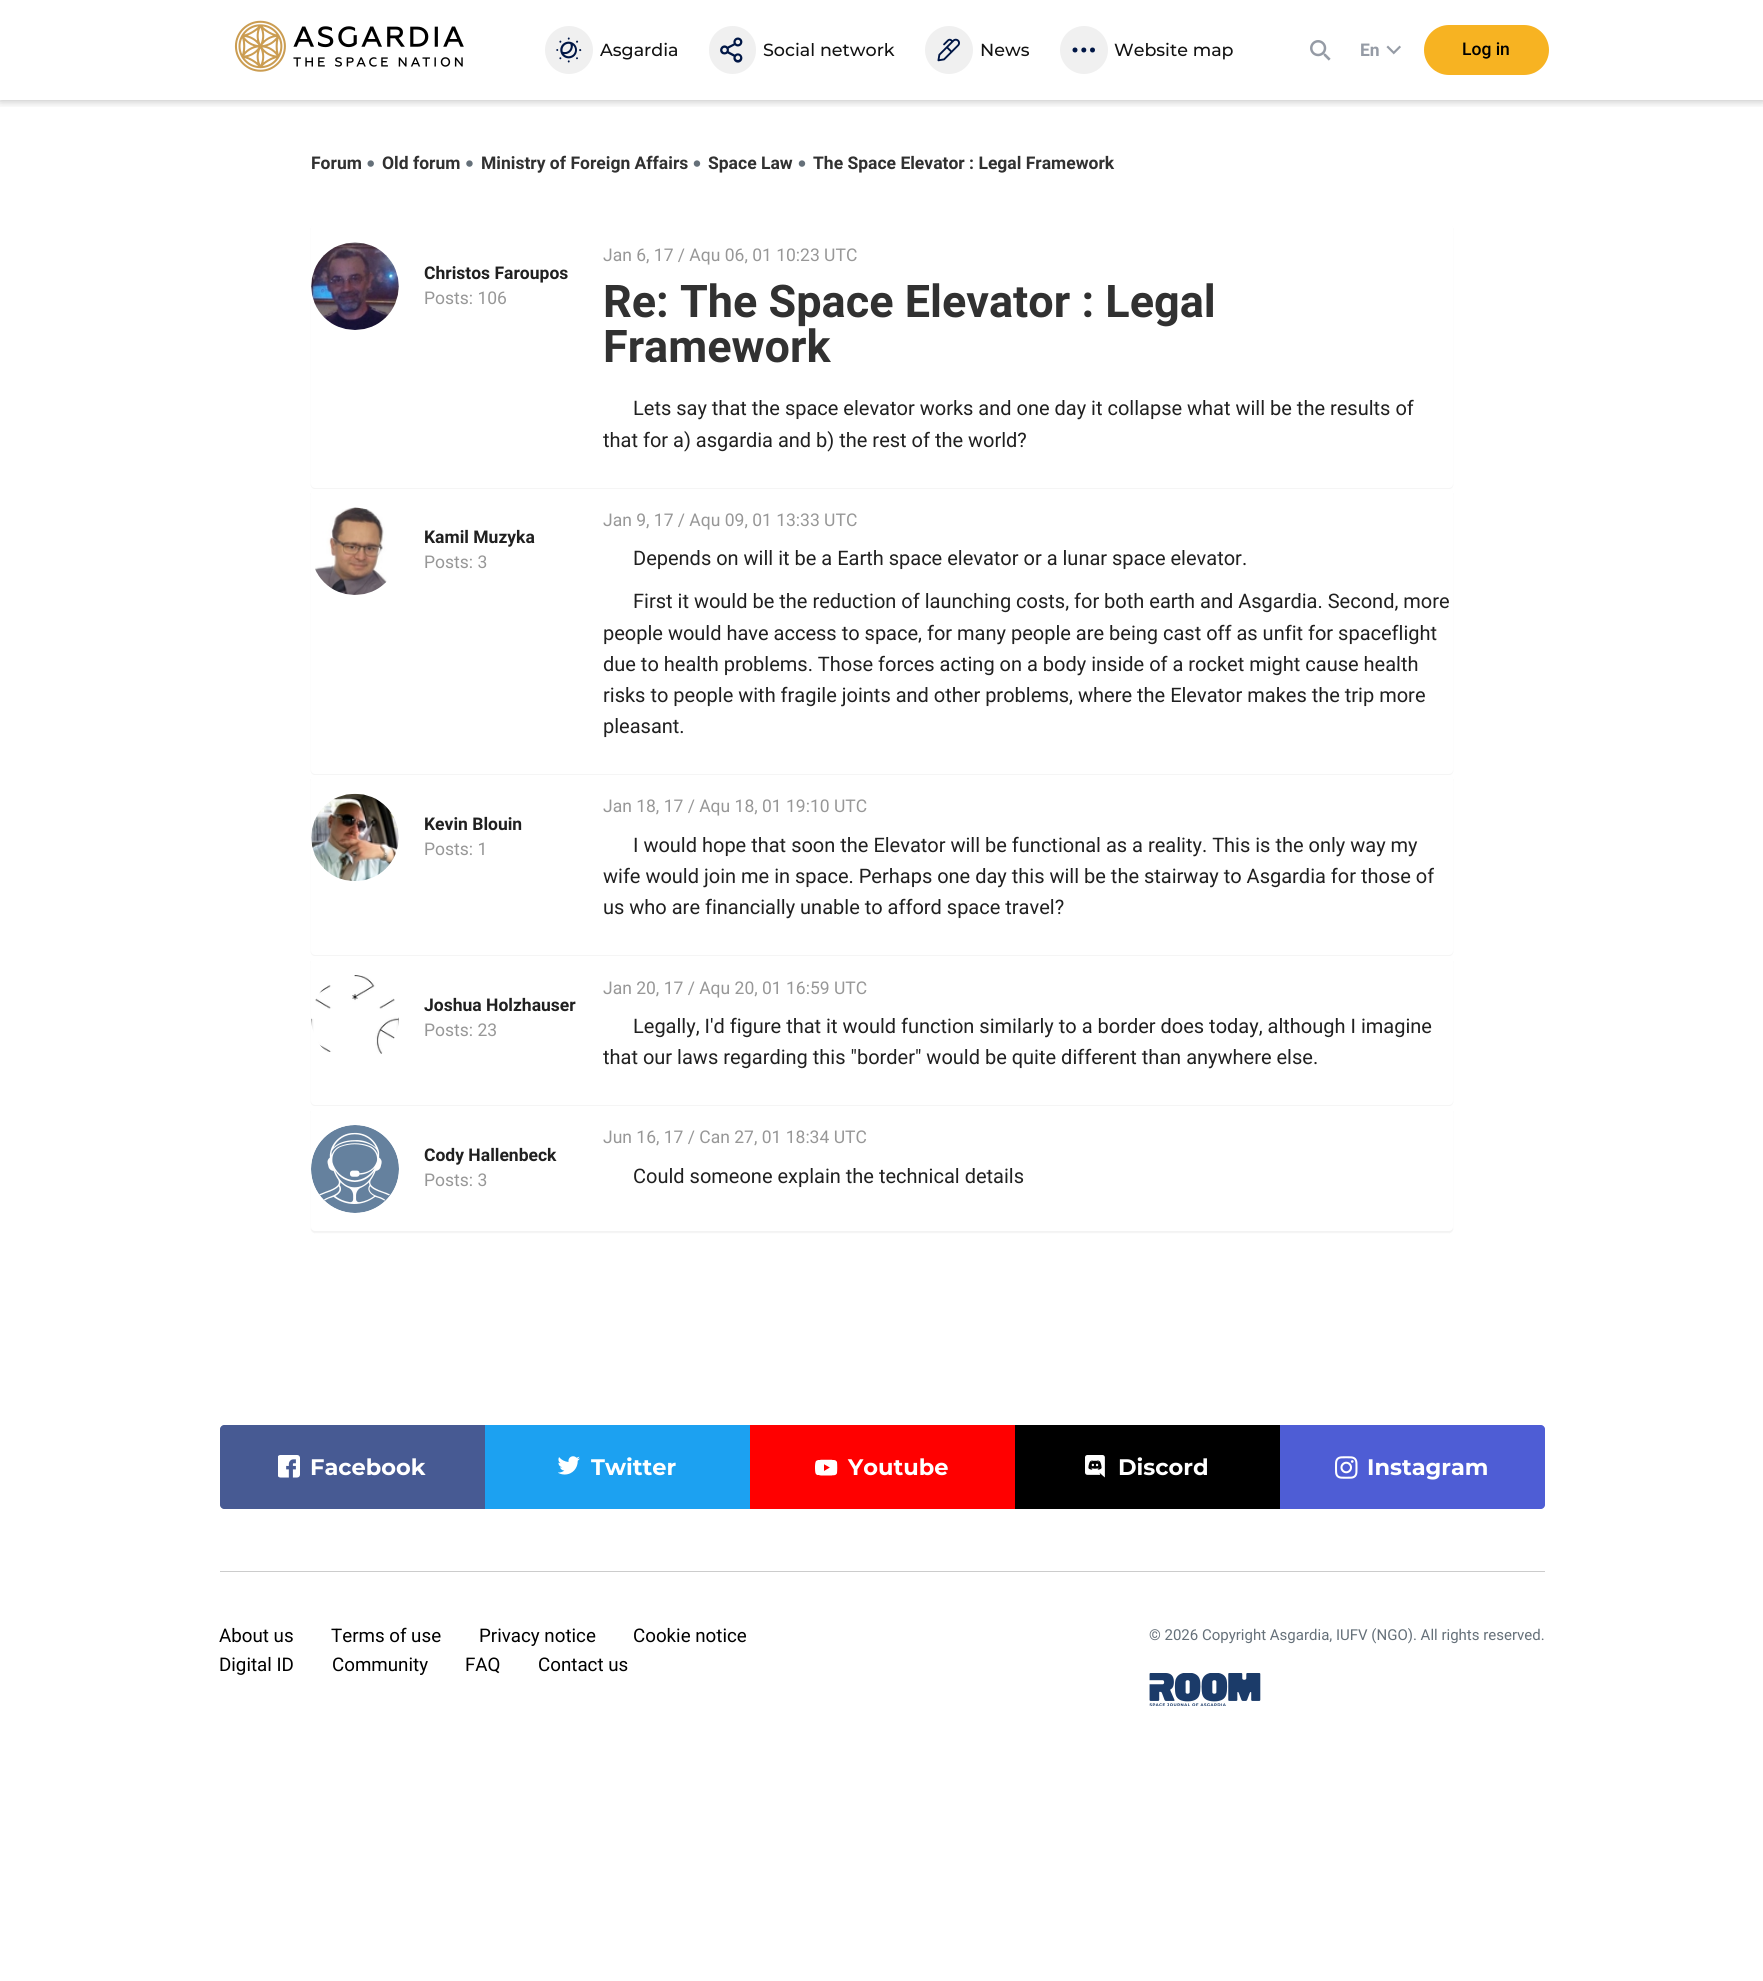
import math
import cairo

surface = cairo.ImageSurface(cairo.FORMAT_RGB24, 1763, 1981)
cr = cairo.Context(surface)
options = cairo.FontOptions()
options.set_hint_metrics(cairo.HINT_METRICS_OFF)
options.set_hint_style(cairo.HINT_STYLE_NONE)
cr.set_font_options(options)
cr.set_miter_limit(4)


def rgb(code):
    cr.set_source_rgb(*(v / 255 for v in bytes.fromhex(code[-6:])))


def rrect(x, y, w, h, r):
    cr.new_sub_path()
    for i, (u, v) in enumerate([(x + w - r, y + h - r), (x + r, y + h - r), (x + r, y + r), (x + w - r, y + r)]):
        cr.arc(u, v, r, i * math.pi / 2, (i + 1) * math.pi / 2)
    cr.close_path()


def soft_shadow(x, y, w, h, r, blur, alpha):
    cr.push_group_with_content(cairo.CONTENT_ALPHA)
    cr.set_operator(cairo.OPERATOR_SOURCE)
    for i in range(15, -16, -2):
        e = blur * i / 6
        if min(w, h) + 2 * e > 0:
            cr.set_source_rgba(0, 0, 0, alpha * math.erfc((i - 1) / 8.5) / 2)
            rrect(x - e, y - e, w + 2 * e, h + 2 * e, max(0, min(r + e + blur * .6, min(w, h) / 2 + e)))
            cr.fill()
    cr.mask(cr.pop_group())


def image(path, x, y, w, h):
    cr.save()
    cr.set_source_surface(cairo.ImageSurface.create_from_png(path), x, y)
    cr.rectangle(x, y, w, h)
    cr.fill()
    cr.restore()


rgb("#ffffff")
cr.paint()
cr.save()
cr.rectangle(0, 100, 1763, 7)
cr.clip()
rgb("#000000")
soft_shadow(0, 0, 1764, 100, 0, 5, 0.3)
cr.restore()
image("img/1.png", 234, 20, 230, 52)
rgb("#f0f0f0")
cr.arc(569, 50, 24, 0, 2 * math.pi)
cr.fill()
image("img/2.png", 556, 37, 26, 26)
rrect(709, 26, 47, 48, 23.5)
cr.fill()
image("img/3.png", 720, 37, 23, 26)
cr.arc(949, 50, 24, 0, 2 * math.pi)
cr.fill()
image("img/4.png", 937, 38, 23, 24)
cr.arc(1084, 50, 24, 0, 2 * math.pi)
cr.fill()
rgb("#001645")
cr.arc(1075, 50, 2.5, 0, 2 * math.pi)
cr.fill()
cr.arc(1083.8, 50, 2.5, 0, 2 * math.pi)
cr.fill()
cr.arc(1092.5, 50, 2.5, 0, 2 * math.pi)
cr.fill()
image("img/5.png", 1310, 40, 21, 21)
image("img/6.png", 1386, 45, 15, 10)
rgb("#f7b322")
rrect(1424, 25, 125, 50, 25)
cr.fill()
image("img/7.png", 367, 160, 7, 7)
image("img/8.png", 466, 160, 7, 7)
image("img/9.png", 693, 160, 8, 7)
image("img/9.png", 798, 160, 8, 7)
rgb("#000000")
soft_shadow(311, 225, 1142, 264, 4, 0.5, 0.05)
rgb("#ffffff")
rrect(311, 224, 1142, 264, 4)
cr.fill()
image("img/10.png", 311, 242, 88, 88)
rgb("#000000")
soft_shadow(311, 490, 1142, 285, 4, 0.5, 0.05)
rgb("#ffffff")
rrect(311, 489, 1142, 285, 4)
cr.fill()
image("img/11.png", 315, 507, 72, 88)
rgb("#000000")
soft_shadow(311, 776, 1142, 180, 4, 0.5, 0.05)
rgb("#ffffff")
rrect(311, 775, 1142, 180, 4)
cr.fill()
image("img/12.png", 311, 793, 88, 88)
rgb("#000000")
soft_shadow(311, 958, 1142, 148, 4, 0.5, 0.05)
rgb("#ffffff")
rrect(311, 956, 1142, 149, 4)
cr.fill()
image("img/13.png", 311, 975, 88, 79)
rgb("#000000")
soft_shadow(311, 1108, 1142, 125, 4, 0.5, 0.05)
rgb("#ffffff")
rrect(311, 1106, 1142, 125, 4)
cr.fill()
image("img/14.png", 311, 1125, 88, 88)
rgb("#475a93")
cr.new_path()
cr.move_to(224, 1425)
cr.line_to(485, 1425)
cr.line_to(485, 1509)
cr.line_to(224, 1509)
cr.curve_to(222, 1509, 220, 1507, 220, 1505)
cr.line_to(220, 1429)
cr.curve_to(220, 1427, 222, 1425, 224, 1425)
cr.close_path()
cr.fill()
image("img/15.png", 278, 1455, 22, 23)
rgb("#1ca1f1")
cr.rectangle(485, 1425, 265, 84)
cr.fill()
image("img/16.png", 558, 1456, 22, 19)
rgb("#ff0000")
cr.rectangle(750, 1425, 265, 84)
cr.fill()
image("img/17.png", 815, 1459, 23, 17)
rgb("#000000")
cr.rectangle(1015, 1425, 265, 84)
cr.fill()
image("img/18.png", 1085, 1455, 20, 23)
rgb("#4e5dd5")
cr.new_path()
cr.move_to(1280, 1425)
cr.line_to(1541, 1425)
cr.curve_to(1543, 1425, 1545, 1427, 1545, 1429)
cr.line_to(1545, 1505)
cr.curve_to(1545, 1507, 1543, 1509, 1541, 1509)
cr.line_to(1280, 1509)
cr.close_path()
cr.fill()
image("img/19.png", 1335, 1456, 23, 23)
rgb("#cccccc")
cr.rectangle(220, 1571, 1325, 1)
cr.fill()
image("img/20.png", 1149, 1673, 112, 33)
cr.select_font_face("Montserrat Medium")
cr.set_font_size(17.5)
rgb("#121212")
for x, y, s in [
    (600, 56, "Asgardia"),
    (763, 56, "Social network"),
    (980, 56, "News"),
    (1114, 56, "Website map"),
]:
    cr.move_to(x, y)
    cr.show_text(s)
cr.select_font_face("Roboto", cairo.FONT_SLANT_NORMAL, cairo.FONT_WEIGHT_BOLD)
rgb("#959ba5")
cr.move_to(1360, 56)
cr.show_text("En")
cr.select_font_face("Roboto Medium")
rgb("#000000")
cr.move_to(1462, 55)
cr.show_text("Log in")
cr.select_font_face("Roboto", cairo.FONT_SLANT_NORMAL, cairo.FONT_WEIGHT_BOLD)
rgb("#313131")
for x, y, s in [
    (311, 169, "Forum"),
    (382, 169, "Old forum"),
    (481, 169, "Ministry of Foreign Affairs"),
    (708, 169, "Space Law"),
    (813, 169, "The Space Elevator : Legal Framework"),
]:
    cr.move_to(x, y)
    cr.show_text(s)
rgb("#202020")
cr.move_to(424, 279)
cr.show_text("Christos Faroupos")
cr.select_font_face("Roboto")
rgb("#979797")
cr.move_to(424, 304)
cr.show_text("Posts: 106")
cr.move_to(603, 261)
cr.show_text("Jan 6, 17 / Aqu 06, 01 10:23 UTC")
cr.select_font_face("Roboto", cairo.FONT_SLANT_NORMAL, cairo.FONT_WEIGHT_BOLD)
cr.set_font_size(45)
rgb("#313131")
cr.move_to(603, 317)
cr.show_text("Re: The Space Elevator : Legal")
cr.move_to(603, 362)
cr.show_text("Framework")
cr.select_font_face("Roboto")
cr.set_font_size(20)
rgb("#202020")
cr.move_to(633, 415)
cr.show_text("Lets say that the space elevator works and one day it collapse what will be the results of")
cr.move_to(603, 447)
cr.show_text("that for a) asgardia and b) the rest of the world?")
cr.select_font_face("Roboto", cairo.FONT_SLANT_NORMAL, cairo.FONT_WEIGHT_BOLD)
cr.set_font_size(17.5)
cr.move_to(424, 543)
cr.show_text("Kamil Muzyka")
cr.select_font_face("Roboto")
rgb("#979797")
cr.move_to(424, 568)
cr.show_text("Posts: 3")
cr.move_to(603, 526)
cr.show_text("Jan 9, 17 / Aqu 09, 01 13:33 UTC")
cr.set_font_size(20)
rgb("#202020")
for x, y, s in [
    (633, 565, "Depends on will it be a Earth space elevator or a lunar space elevator."),
    (633, 608, "First it would be the reduction of launching costs, for both earth and Asgardia. Second, more"),
    (603, 640, "people would have access to space, for many people are being cast off as unfit for spaceflight"),
    (603, 671, "due to health problems. Those forces acting on a body inside of a rocket might cause health"),
    (603, 702, "risks to people with fragile joints and other problems, where the Elevator makes the trip more"),
    (603, 733, "pleasant."),
]:
    cr.move_to(x, y)
    cr.show_text(s)
cr.select_font_face("Roboto", cairo.FONT_SLANT_NORMAL, cairo.FONT_WEIGHT_BOLD)
cr.set_font_size(17.5)
cr.move_to(424, 830)
cr.show_text("Kevin Blouin")
cr.select_font_face("Roboto")
rgb("#979797")
cr.move_to(424, 855)
cr.show_text("Posts: 1")
cr.move_to(603, 812)
cr.show_text("Jan 18, 17 / Aqu 18, 01 19:10 UTC")
cr.set_font_size(20)
rgb("#202020")
for x, y, s in [
    (633, 852, "I would hope that soon the Elevator will be functional as a reality. This is the only way my"),
    (603, 883, "wife would join me in space. Perhaps one day this will be the stairway to Asgardia for those of"),
    (603, 914, "us who are financially unable to afford space travel?"),
]:
    cr.move_to(x, y)
    cr.show_text(s)
cr.select_font_face("Roboto", cairo.FONT_SLANT_NORMAL, cairo.FONT_WEIGHT_BOLD)
cr.set_font_size(17.5)
cr.move_to(424, 1011)
cr.show_text("Joshua Holzhauser")
cr.select_font_face("Roboto")
rgb("#979797")
cr.move_to(424, 1036)
cr.show_text("Posts: 23")
cr.move_to(603, 994)
cr.show_text("Jan 20, 17 / Aqu 20, 01 16:59 UTC")
cr.set_font_size(20)
rgb("#202020")
cr.move_to(633, 1033)
cr.show_text("Legally, I'd figure that it would function similarly to a border does today, although I imagine")
cr.move_to(603, 1064)
cr.show_text("that our laws regarding this \"border\" would be quite different than anywhere else.")
cr.select_font_face("Roboto", cairo.FONT_SLANT_NORMAL, cairo.FONT_WEIGHT_BOLD)
cr.set_font_size(17.5)
cr.move_to(424, 1161)
cr.show_text("Cody Hallenbeck")
cr.select_font_face("Roboto")
rgb("#979797")
cr.move_to(424, 1186)
cr.show_text("Posts: 3")
cr.move_to(603, 1143)
cr.show_text("Jun 16, 17 / Can 27, 01 18:34 UTC")
cr.set_font_size(20)
rgb("#202020")
cr.move_to(633, 1183)
cr.show_text("Could someone explain the technical details")
cr.select_font_face("Montserrat", cairo.FONT_SLANT_NORMAL, cairo.FONT_WEIGHT_BOLD)
cr.set_font_size(22.5)
rgb("#ffffff")
for x, y, s in [
    (310, 1475, "Facebook"),
    (591, 1475, "Twitter"),
    (848, 1475, "Youtube"),
    (1118, 1475, "Discord"),
    (1367, 1475, "Instagram"),
]:
    cr.move_to(x, y)
    cr.show_text(s)
cr.select_font_face("Roboto")
cr.set_font_size(18.75)
rgb("#000000")
for x, y, s in [
    (219, 1642, "About us"),
    (331, 1642, "Terms of use"),
    (479, 1642, "Privacy notice"),
    (633, 1642, "Cookie notice"),
    (219, 1671, "Digital ID"),
    (332, 1671, "Community"),
    (465, 1671, "FAQ"),
    (538, 1671, "Contact us"),
]:
    cr.move_to(x, y)
    cr.show_text(s)
cr.set_font_size(15)
rgb("#657079")
cr.move_to(1149, 1640)
cr.show_text("© 2026 Copyright Asgardia, IUFV (NGO). All rights reserved.")
surface.write_to_png("page.png")
